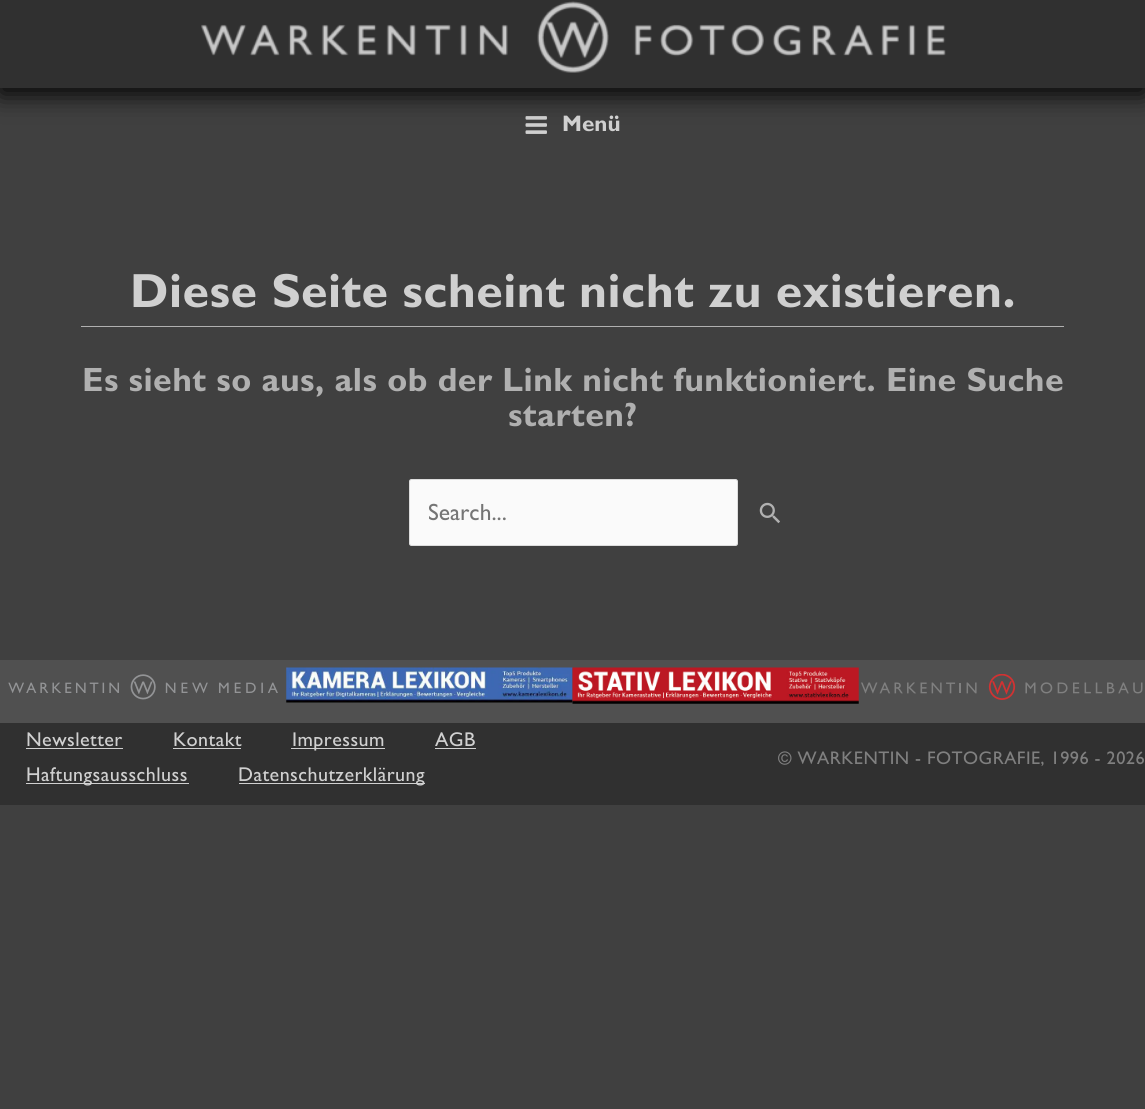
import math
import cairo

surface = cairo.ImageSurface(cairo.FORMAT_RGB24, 1145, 1109)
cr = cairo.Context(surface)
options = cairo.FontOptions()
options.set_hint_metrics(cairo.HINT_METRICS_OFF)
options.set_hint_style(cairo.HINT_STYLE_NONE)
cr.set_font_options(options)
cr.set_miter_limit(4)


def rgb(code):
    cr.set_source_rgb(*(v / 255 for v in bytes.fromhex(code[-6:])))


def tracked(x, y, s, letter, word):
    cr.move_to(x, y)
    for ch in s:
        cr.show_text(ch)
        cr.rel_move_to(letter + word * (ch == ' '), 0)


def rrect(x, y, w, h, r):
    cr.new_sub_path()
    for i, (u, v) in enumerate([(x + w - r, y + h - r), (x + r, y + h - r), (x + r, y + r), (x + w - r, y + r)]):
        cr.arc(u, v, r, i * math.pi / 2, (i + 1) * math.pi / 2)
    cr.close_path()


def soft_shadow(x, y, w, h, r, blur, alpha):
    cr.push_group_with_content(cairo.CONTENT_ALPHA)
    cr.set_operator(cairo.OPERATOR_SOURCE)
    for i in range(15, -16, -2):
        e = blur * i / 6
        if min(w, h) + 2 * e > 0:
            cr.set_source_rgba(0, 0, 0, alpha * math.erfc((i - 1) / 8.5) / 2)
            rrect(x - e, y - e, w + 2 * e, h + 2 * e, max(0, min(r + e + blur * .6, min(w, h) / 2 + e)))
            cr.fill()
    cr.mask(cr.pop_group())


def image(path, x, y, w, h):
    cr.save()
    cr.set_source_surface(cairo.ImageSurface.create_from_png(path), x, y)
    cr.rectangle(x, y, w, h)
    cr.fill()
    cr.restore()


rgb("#404040")
cr.paint()
image("img/2.png", 525, 116, 22, 18)
rgb("#000000")
soft_shadow(0, -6, 1145, 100, 0, 12.5, 1)
rgb("#303030")
cr.rectangle(0, 0, 1145, 88)
cr.fill()
image("img/1.png", 201, 1, 745, 72)
rgb("#b0b0b0")
cr.rectangle(81, 326, 983, 1)
cr.fill()
rgb("#fafafa")
rrect(409.5, 479.5, 328, 66, 2)
cr.fill_preserve()
rgb("#dddddd")
cr.set_line_width(1)
cr.stroke()
image("img/3.png", 759, 502, 21, 22)
rgb("#505050")
cr.rectangle(0, 660, 1145, 63)
cr.fill()
image("img/4.png", 8, 674, 270, 26)
image("img/5.png", 286, 667, 287, 36)
image("img/6.png", 572, 667, 287, 37)
image("img/7.png", 861, 674, 282, 26)
for x, y, w, h, color in [
    (0, 723, 1145, 82, "#303030"),
    (26, 748, 97, 1, "#d0d0d0"),
    (173, 748, 68, 1, "#d0d0d0"),
    (291, 748, 94, 1, "#d0d0d0"),
    (435, 748, 41, 1, "#d0d0d0"),
    (26, 783, 163, 1, "#d0d0d0"),
    (239, 783, 186, 1, "#d0d0d0"),
]:
    rgb(color)
    cr.rectangle(x, y, w, h)
    cr.fill()
cr.select_font_face("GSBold", cairo.FONT_SLANT_NORMAL, cairo.FONT_WEIGHT_BOLD)
cr.set_font_size(22.5)
cr.move_to(562, 131)
cr.show_text("Menü")
cr.set_font_size(48.1)
tracked(130, 307, "Diese Seite scheint nicht zu existieren.", 0.47, 0)
cr.set_font_size(33.75)
rgb("#b0b0b0")
tracked(82, 391, "Es sieht so aus, als ob der Link nicht funktioniert. Eine Suche", 0.47, 0)
tracked(508, 426, "starten?", 0.47, 0)
cr.select_font_face("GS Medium")
cr.set_font_size(23.5)
rgb("#757575")
cr.move_to(428, 520)
cr.show_text("Search...")
cr.set_font_size(20)
rgb("#d0d0d0")
for x, y, s in [
    (26, 746, "Newsletter"),
    (173, 746, "Kontakt"),
    (292, 746, "Impressum"),
    (435, 746, "AGB"),
    (26, 781, "Haftungsausschluss"),
    (238, 781, "Datenschutzerklärung"),
]:
    tracked(x, y, s, 0.47, 0)
cr.set_font_size(18.3)
rgb("#808080")
tracked(778, 764, "© WARKENTIN - FOTOGRAFIE, 1996 - 2026", 0.47, 0)
surface.write_to_png("page.png")
